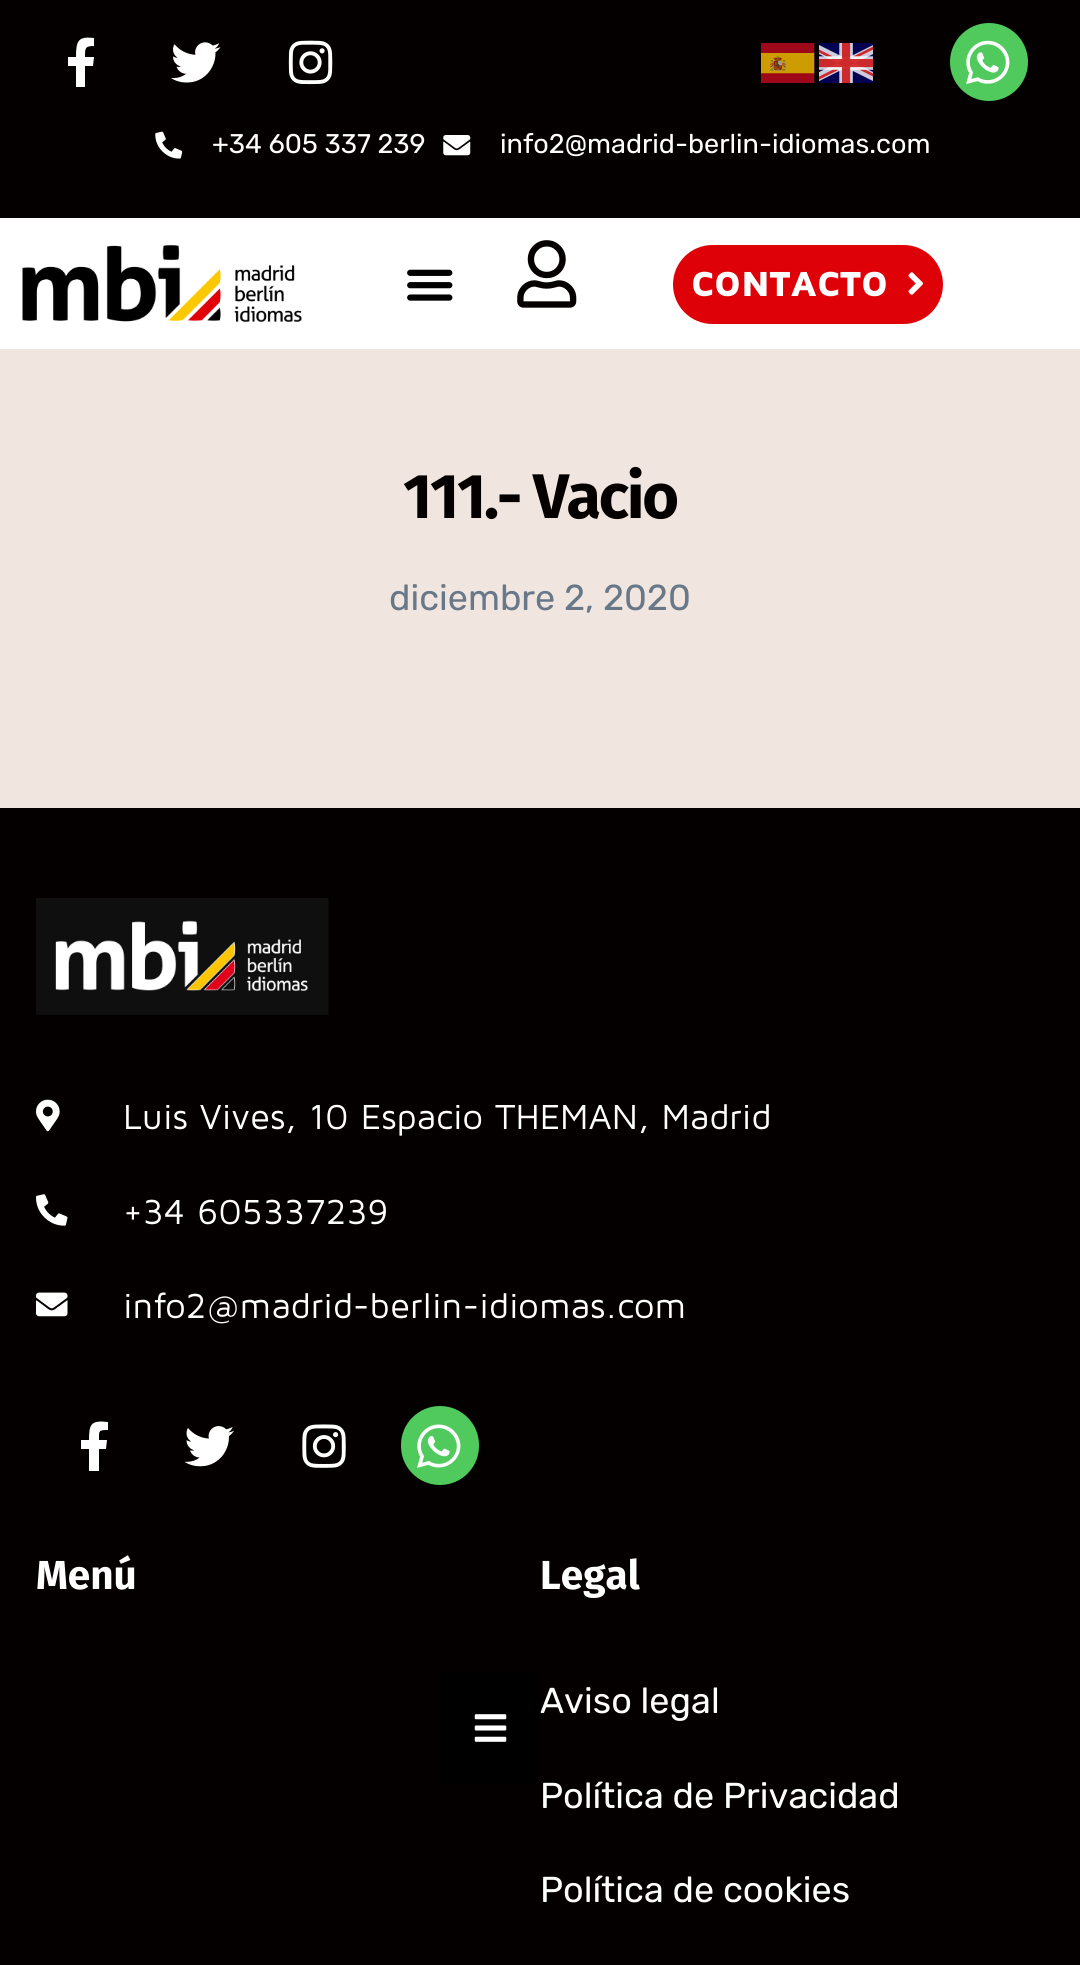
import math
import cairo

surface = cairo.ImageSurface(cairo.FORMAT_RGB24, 1080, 1965)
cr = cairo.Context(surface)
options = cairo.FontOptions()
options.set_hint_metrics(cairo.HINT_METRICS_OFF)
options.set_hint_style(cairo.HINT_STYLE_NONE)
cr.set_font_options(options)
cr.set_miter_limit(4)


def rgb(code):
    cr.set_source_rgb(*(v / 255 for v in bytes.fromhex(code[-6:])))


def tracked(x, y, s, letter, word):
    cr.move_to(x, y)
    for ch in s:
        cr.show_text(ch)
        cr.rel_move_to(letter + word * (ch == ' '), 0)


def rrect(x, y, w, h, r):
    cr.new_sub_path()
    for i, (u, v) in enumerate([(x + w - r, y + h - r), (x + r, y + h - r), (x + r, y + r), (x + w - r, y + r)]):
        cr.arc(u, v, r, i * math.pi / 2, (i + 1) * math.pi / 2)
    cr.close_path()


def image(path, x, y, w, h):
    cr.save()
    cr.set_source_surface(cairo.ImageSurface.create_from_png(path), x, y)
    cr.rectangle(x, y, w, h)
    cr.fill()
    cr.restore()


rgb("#f0e6df")
cr.paint()
rgb("#040000")
cr.rectangle(0, 0, 1080, 218)
cr.fill()
rgb("#ffffff")
cr.new_path()
cr.move_to(93, 66)
cr.line_to(85, 66)
cr.line_to(85, 87)
cr.line_to(76, 87)
cr.line_to(76, 66)
cr.line_to(68, 66)
cr.line_to(68, 57)
cr.line_to(76, 57)
cr.curve_to(76, 41, 78, 36, 94, 38)
cr.line_to(94, 46)
cr.curve_to(85, 46, 85, 48, 85, 57)
cr.line_to(94, 57)
cr.close_path()
cr.fill()
image("img/1.png", 171, 42, 50, 41)
image("img/2.png", 288, 40, 45, 45)
image("img/3.png", 761, 43, 54, 40)
image("img/4.png", 819, 43, 54, 40)
rgb("#50ca5d")
cr.arc(989, 62, 39, 0, 2 * math.pi)
cr.fill()
image("img/5.png", 966, 40, 44, 44)
image("img/6.png", 155, 131, 28, 28)
image("img/7.png", 443, 135, 28, 21)
rgb("#ffffff")
cr.rectangle(0, 218, 1080, 131)
cr.fill()
image("img/8.png", 22, 245, 280, 77)
image("img/9.png", 407, 269, 46, 32)
image("img/10.png", 517, 240, 60, 68)
rgb("#df0108")
rrect(672, 244, 272, 81, 40.5)
cr.fill_preserve()
rgb("#ffffff")
cr.stroke()
image("img/11.png", 908, 272, 15, 23)
rgb("#040000")
cr.rectangle(0, 808, 1080, 1157)
cr.fill()
image("img/12.png", 36, 898, 293, 117)
image("img/13.png", 36, 1099, 24, 33)
image("img/14.png", 36, 1194, 32, 32)
image("img/15.png", 36, 1292, 32, 25)
rgb("#ffffff")
cr.new_path()
cr.move_to(106, 1449)
cr.line_to(99, 1449)
cr.line_to(99, 1471)
cr.line_to(89, 1471)
cr.line_to(89, 1449)
cr.line_to(81, 1449)
cr.line_to(81, 1440)
cr.line_to(89, 1440)
cr.curve_to(89, 1424, 91, 1420, 108, 1422)
cr.line_to(108, 1430)
cr.curve_to(98, 1430, 99, 1431, 99, 1440)
cr.line_to(107, 1440)
cr.close_path()
cr.fill()
image("img/16.png", 184, 1426, 50, 41)
image("img/17.png", 302, 1424, 44, 44)
rgb("#50ca5d")
rrect(401, 1406, 78, 79, 39)
cr.fill()
image("img/18.png", 417, 1424, 44, 44)
rgb("#000000")
cr.rectangle(441, 1672, 99, 112)
cr.fill()
image("img/19.png", 474, 1714, 33, 28)
cr.select_font_face("Rubik")
cr.set_font_size(27)
rgb("#ffffff")
cr.move_to(212, 153)
cr.show_text("+34 605 337 239")
cr.move_to(500, 153)
cr.show_text("info2@madrid-berlin-idiomas.com")
cr.select_font_face("Maven Pro Black")
cr.set_font_size(36)
cr.move_to(691, 296)
cr.show_text("CONTACTO")
cr.select_font_face("Fira Sans", cairo.FONT_SLANT_NORMAL, cairo.FONT_WEIGHT_BOLD)
cr.set_font_size(63)
rgb("#040000")
tracked(403, 518, "111.- Vacio", -2.25, 0)
cr.select_font_face("Rubik")
cr.set_font_size(36)
rgb("#687889")
cr.move_to(389, 610)
cr.show_text("diciembre 2, 2020")
cr.select_font_face("Maven Pro")
rgb("#ffffff")
for x, y, s in [
    (123, 1129, "Luis Vives, 10 Espacio THEMAN, Madrid"),
    (123, 1224, "+34 605337239"),
    (123, 1318, "info2@madrid-berlin-idiomas.com"),
]:
    cr.move_to(x, y)
    cr.show_text(s)
cr.select_font_face("Fira Sans", cairo.FONT_SLANT_NORMAL, cairo.FONT_WEIGHT_BOLD)
cr.set_font_size(40.5)
cr.move_to(36, 1589)
cr.show_text("Menú")
cr.move_to(540, 1589)
cr.show_text("Legal")
cr.select_font_face("Rubik")
cr.set_font_size(36)
for x, y, s in [
    (540, 1713, "Aviso legal"),
    (540, 1808, "Política de Privacidad"),
    (540, 1902, "Política de cookies"),
]:
    cr.move_to(x, y)
    cr.show_text(s)
surface.write_to_png("page.png")
